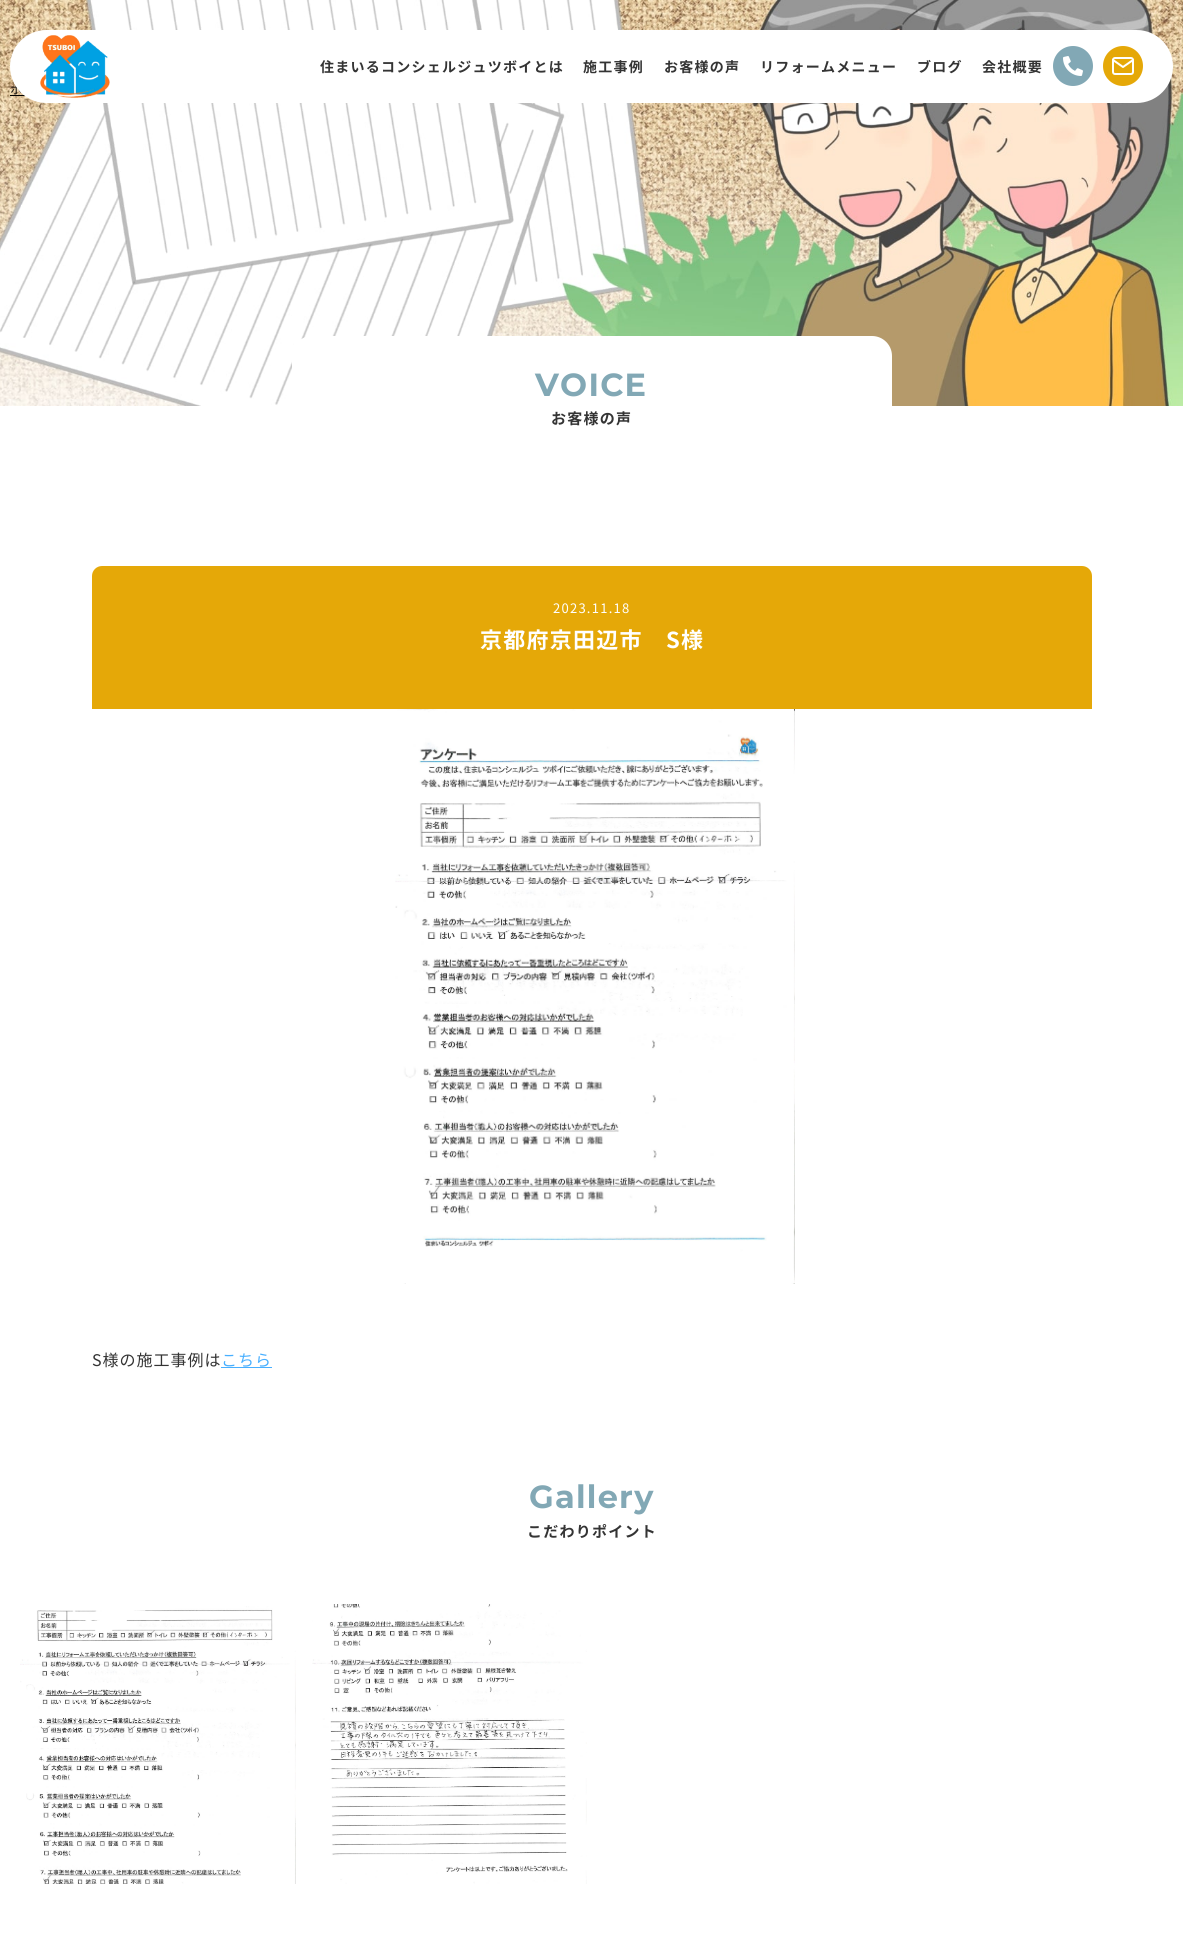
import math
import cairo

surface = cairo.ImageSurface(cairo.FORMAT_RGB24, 1183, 1940)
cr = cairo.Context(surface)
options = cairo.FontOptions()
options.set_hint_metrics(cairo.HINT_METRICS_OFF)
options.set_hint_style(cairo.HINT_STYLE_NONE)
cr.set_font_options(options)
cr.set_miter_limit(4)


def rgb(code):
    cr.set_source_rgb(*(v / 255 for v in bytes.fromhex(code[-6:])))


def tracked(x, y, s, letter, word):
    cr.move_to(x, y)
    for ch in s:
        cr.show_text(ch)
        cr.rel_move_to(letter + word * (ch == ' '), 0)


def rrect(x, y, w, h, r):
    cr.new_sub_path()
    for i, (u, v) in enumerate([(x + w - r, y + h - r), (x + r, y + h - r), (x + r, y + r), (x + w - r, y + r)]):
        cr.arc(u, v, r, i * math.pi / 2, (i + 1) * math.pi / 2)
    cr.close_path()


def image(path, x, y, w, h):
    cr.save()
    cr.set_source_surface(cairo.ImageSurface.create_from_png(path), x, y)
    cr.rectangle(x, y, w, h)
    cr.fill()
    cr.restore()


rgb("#ffffff")
cr.paint()
image("img/4.png", 0, 0, 1183, 406)
rgb("#000000")
cr.rectangle(10, 95, 15, 1)
cr.fill()
rgb("#ffffff")
rrect(292, 336, 600, 126, 20)
cr.fill()
rgb("#e5a808")
cr.new_path()
cr.move_to(102, 566)
cr.line_to(1082, 566)
cr.curve_to(1087.5, 566, 1092, 570.5, 1092, 576)
cr.line_to(1092, 709)
cr.line_to(92, 709)
cr.line_to(92, 576)
cr.curve_to(92, 570.5, 96.5, 566, 102, 566)
cr.close_path()
cr.fill()
image("img/5.png", 395, 709, 400, 575)
rgb("#48afff")
cr.rectangle(221, 1367, 51, 1)
cr.fill()
image("img/6.png", 20, 1606, 276, 278)
image("img/7.png", 312, 1604, 275, 280)
cr.select_font_face("Noto Sans JP")
cr.set_font_size(12)
rgb("#000000")
tracked(10, 94, "ホ", 1.25, 0)
rgb("#ffffff")
rrect(10, 30, 1163, 73, 36.5)
cr.fill()
cr.select_font_face("Noto Sans JP", cairo.FONT_SLANT_NORMAL, cairo.FONT_WEIGHT_BOLD)
cr.set_font_size(14)
rgb("#343434")
for x, y, s in [
    (982, 72, "会社概要"),
    (917, 72, "ブログ"),
    (760, 72, "リフォームメニュー"),
    (664, 72, "お客様の声"),
    (583, 72, "施工事例"),
    (320, 72, "住まいるコンシェルジュツボイとは"),
]:
    tracked(x, y, s, 1.25, 0)
image("img/3.png", 1103, 46, 40, 40)
image("img/2.png", 1053, 46, 40, 40)
image("img/1.png", 40, 35, 70, 63)
cr.select_font_face("Montserrat", cairo.FONT_SLANT_NORMAL, cairo.FONT_WEIGHT_BOLD)
cr.set_font_size(32)
rgb("#82a8b5")
tracked(535, 396, "VOICE", 1.25, 0)
cr.select_font_face("Noto Sans JP", cairo.FONT_SLANT_NORMAL, cairo.FONT_WEIGHT_BOLD)
cr.set_font_size(15)
rgb("#343434")
tracked(551, 424, "お客様の声", 1.25, 0)
cr.select_font_face("Noto Sans JP")
cr.set_font_size(13)
rgb("#ffffff")
tracked(553, 613, "2023.11.18", 1.25, 0)
cr.select_font_face("Noto Sans JP", cairo.FONT_SLANT_NORMAL, cairo.FONT_WEIGHT_BOLD)
cr.set_font_size(22)
tracked(480, 648, "京都府京田辺市　S様", 1.25, 0)
cr.select_font_face("Noto Sans JP")
cr.set_font_size(16)
rgb("#343434")
tracked(92, 1366, "S様の施工事例は", 1, 0)
rgb("#48afff")
tracked(221, 1366, "こちら", 1, 0)
cr.select_font_face("Montserrat", cairo.FONT_SLANT_NORMAL, cairo.FONT_WEIGHT_BOLD)
cr.set_font_size(32)
rgb("#82a8b5")
tracked(529, 1508, "Gallery", 1.25, 0)
cr.select_font_face("Noto Sans JP", cairo.FONT_SLANT_NORMAL, cairo.FONT_WEIGHT_BOLD)
cr.set_font_size(15)
rgb("#343434")
tracked(527, 1537, "こだわりポイント", 1.25, 0)
surface.write_to_png("page.png")
